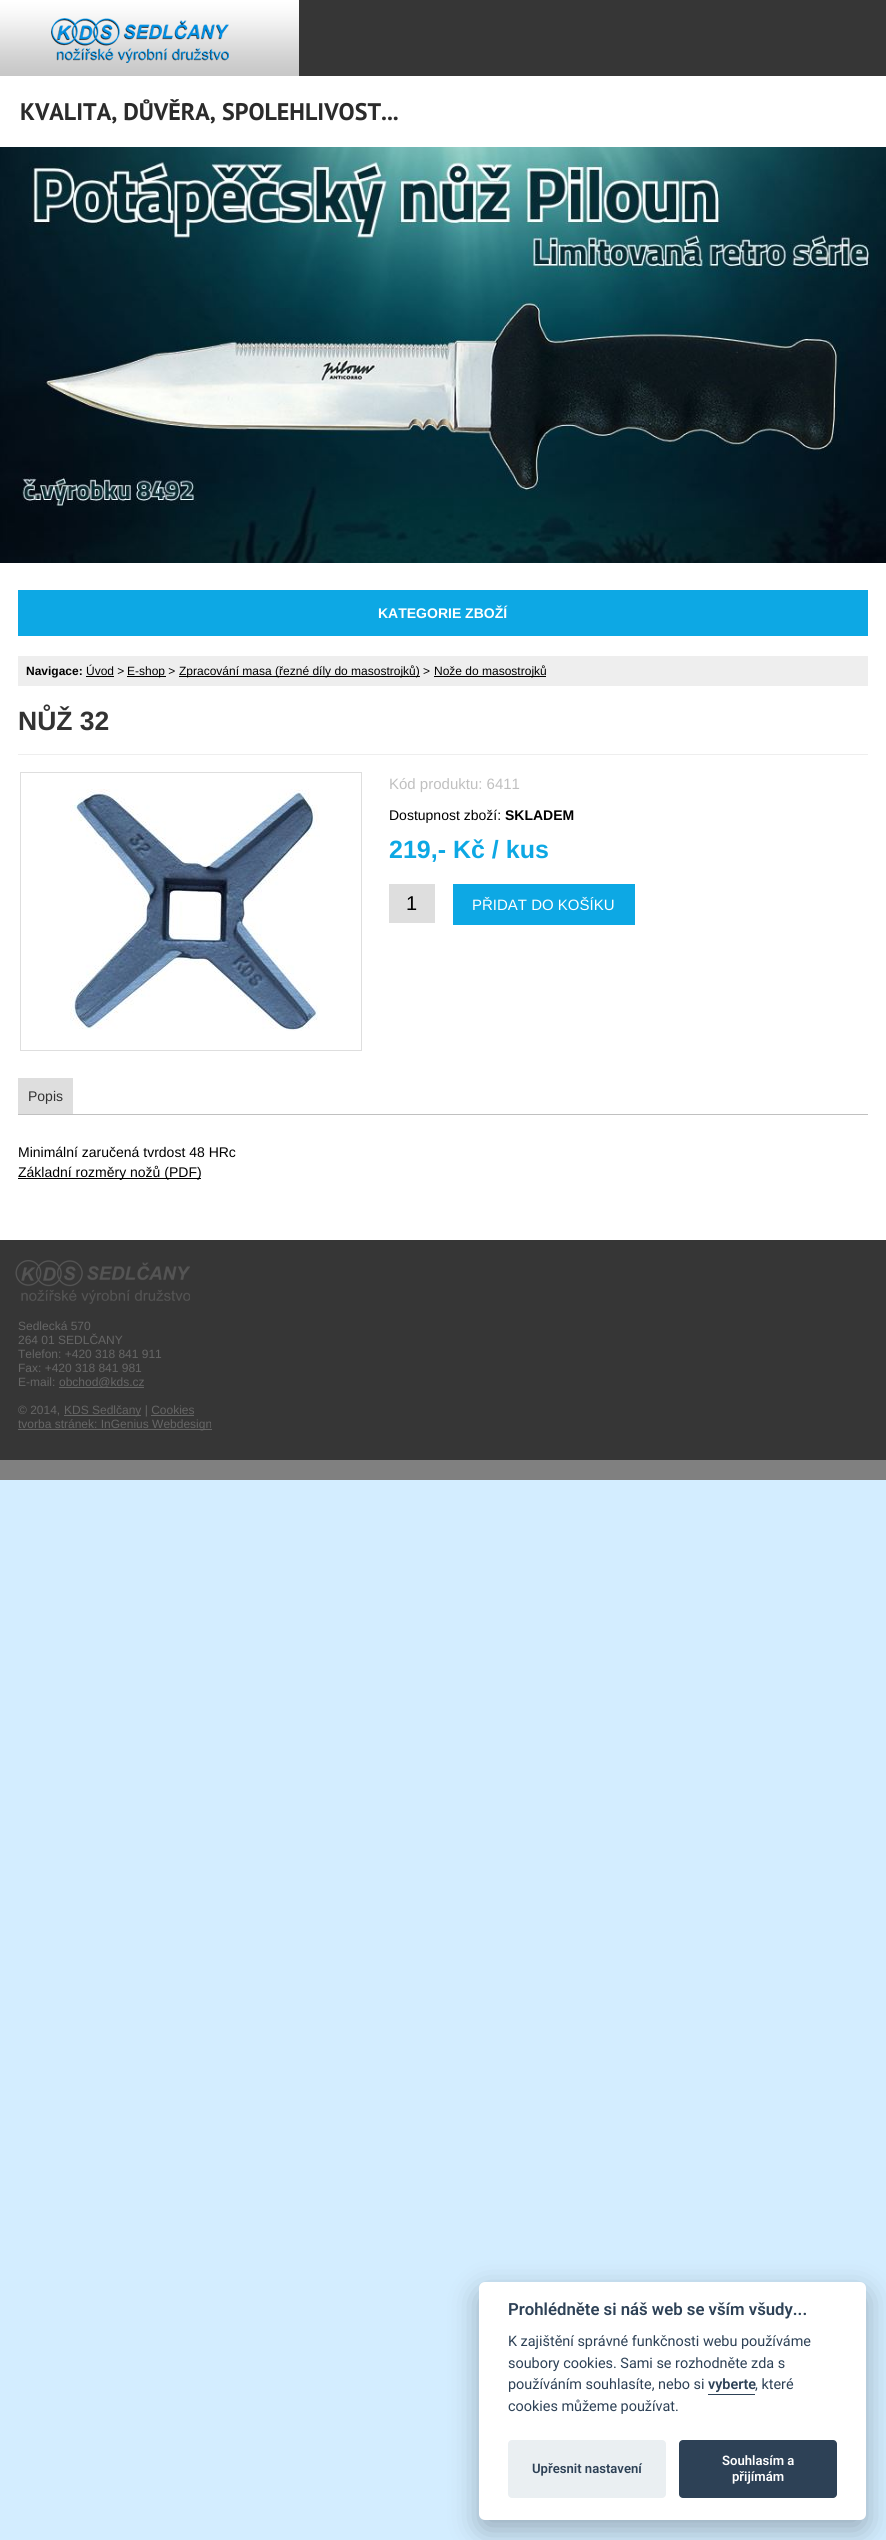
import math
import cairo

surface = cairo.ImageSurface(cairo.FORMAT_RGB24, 886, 2540)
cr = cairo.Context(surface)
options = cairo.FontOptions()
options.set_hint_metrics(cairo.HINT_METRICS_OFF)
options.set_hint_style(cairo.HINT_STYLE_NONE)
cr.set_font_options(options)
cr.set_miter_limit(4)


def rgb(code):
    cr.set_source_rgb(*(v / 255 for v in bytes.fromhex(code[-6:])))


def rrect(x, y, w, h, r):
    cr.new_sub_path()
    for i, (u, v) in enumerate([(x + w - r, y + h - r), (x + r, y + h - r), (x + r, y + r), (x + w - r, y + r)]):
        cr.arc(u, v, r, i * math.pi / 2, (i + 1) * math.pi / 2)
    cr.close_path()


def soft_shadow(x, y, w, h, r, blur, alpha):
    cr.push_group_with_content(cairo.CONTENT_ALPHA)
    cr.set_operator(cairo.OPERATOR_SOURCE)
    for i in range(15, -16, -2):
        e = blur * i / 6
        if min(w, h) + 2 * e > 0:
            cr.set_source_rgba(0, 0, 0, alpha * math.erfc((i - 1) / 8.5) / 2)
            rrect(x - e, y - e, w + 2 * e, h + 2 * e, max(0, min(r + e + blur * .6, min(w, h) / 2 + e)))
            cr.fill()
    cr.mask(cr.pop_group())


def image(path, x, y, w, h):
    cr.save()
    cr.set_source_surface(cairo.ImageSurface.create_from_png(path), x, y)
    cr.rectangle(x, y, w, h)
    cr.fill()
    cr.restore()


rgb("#d3edff")
cr.paint()
image("img/1.png", 0, 0, 299, 76)
rgb("#363636")
cr.rectangle(299, 0, 587, 76)
cr.fill()
rgb("#ffffff")
cr.rectangle(0, 76, 886, 1164)
cr.fill()
image("img/2.png", 0, 147, 886, 416)
for x, y, w, h, color in [
    (18, 590, 850, 46, "#0da8e4"),
    (18, 656, 850, 30, "#eeeeee"),
    (86, 676, 28, 1, "#000000"),
    (127, 676, 39, 1, "#000000"),
    (179, 676, 241, 1, "#000000"),
    (434, 676, 112, 1, "#000000"),
    (18, 754, 850, 1, "#eeeeee"),
]:
    rgb(color)
    cr.rectangle(x, y, w, h)
    cr.fill()
cr.rectangle(20.5, 772.5, 341, 278)
rgb("#dedede")
cr.set_line_width(1)
cr.stroke()
image("img/3.png", 70, 789, 250, 242)
for x, y, w, h, color in [
    (389, 884, 46, 39, "#dedede"),
    (453, 884, 182, 41, "#0da8e4"),
    (18, 1114, 850, 1, "#c0c0c0"),
    (18, 1078, 55, 36, "#dedede"),
    (18, 1178, 183, 1, "#000000"),
    (0, 1240, 886, 220, "#363636"),
]:
    rgb(color)
    cr.rectangle(x, y, w, h)
    cr.fill()
image("img/4.png", 15, 1260, 175, 44)
for x, y, w, h, color in [
    (59, 1387, 85, 1, "#656565"),
    (64, 1415, 77, 1, "#656565"),
    (151, 1415, 43, 1, "#656565"),
    (18, 1429, 194, 1, "#656565"),
    (0, 1460, 886, 20, "#808080"),
]:
    rgb(color)
    cr.rectangle(x, y, w, h)
    cr.fill()
rgb("#020203")
soft_shadow(479, 2292, 387, 238, 6, 15, 0.28)
rgb("#ffffff")
rrect(479, 2282, 387, 238, 6)
cr.fill()
rgb("#2d4156")
cr.rectangle(708, 2394, 47, 1)
cr.fill()
rgb("#eaeff2")
rrect(508, 2440, 158, 58, 4)
cr.fill()
rgb("#2d4156")
rrect(679, 2440, 158, 58, 4)
cr.fill()
cr.select_font_face("PT Sans", cairo.FONT_SLANT_NORMAL, cairo.FONT_WEIGHT_BOLD)
cr.set_font_size(24)
rgb("#2b2b2b")
cr.move_to(20, 120)
cr.show_text("KVALITA, DŮVĚRA, SPOLEHLIVOST...")
cr.select_font_face("Liberation Sans", cairo.FONT_SLANT_NORMAL, cairo.FONT_WEIGHT_BOLD)
cr.set_font_size(14)
rgb("#ffffff")
cr.move_to(378, 618)
cr.show_text("KATEGORIE ZBOŽÍ")
cr.set_font_size(12)
rgb("#000000")
cr.move_to(26, 675)
cr.show_text("Navigace:")
cr.select_font_face("Liberation Sans")
for x, y, s in [
    (86, 675, "Úvod >"),
    (127, 675, "E-shop >"),
    (179, 675, "Zpracování masa (řezné díly do masostrojků) >"),
    (434, 675, "Nože do masostrojků"),
]:
    cr.move_to(x, y)
    cr.show_text(s)
cr.select_font_face("Liberation Sans", cairo.FONT_SLANT_NORMAL, cairo.FONT_WEIGHT_BOLD)
cr.set_font_size(26.5)
rgb("#333333")
cr.move_to(18, 730)
cr.show_text("NŮŽ 32")
cr.select_font_face("Liberation Sans")
cr.set_font_size(15)
rgb("#c0c0c0")
cr.move_to(389, 789)
cr.show_text("Kód produktu: 6411")
cr.set_font_size(14)
rgb("#000000")
cr.move_to(389, 820)
cr.show_text("Dostupnost zboží:")
cr.select_font_face("Liberation Sans", cairo.FONT_SLANT_NORMAL, cairo.FONT_WEIGHT_BOLD)
cr.move_to(505, 820)
cr.show_text("SKLADEM")
cr.set_font_size(25)
rgb("#0da8e4")
cr.move_to(389, 858)
cr.show_text("219,- Kč / kus")
cr.select_font_face("Liberation Sans")
cr.set_font_size(20)
rgb("#000000")
cr.move_to(406, 910)
cr.show_text("1")
cr.set_font_size(15)
rgb("#ffffff")
cr.move_to(472, 910)
cr.show_text("PŘIDAT DO KOŠÍKU")
cr.set_font_size(14)
rgb("#333333")
cr.move_to(28, 1101)
cr.show_text("Popis")
rgb("#000000")
cr.move_to(18, 1157)
cr.show_text("Minimální zaručená tvrdost 48 HRc")
cr.move_to(18, 1177)
cr.show_text("Základní rozměry nožů (PDF)")
cr.set_font_size(12)
rgb("#656565")
for x, y, s in [
    (18, 1330, "Sedlecká 570"),
    (18, 1344, "264 01 SEDLČANY"),
    (18, 1358, "Telefon: +420 318 841 911"),
    (18, 1372, "Fax: +420 318 841 981"),
    (18, 1386, "E-mail:"),
    (59, 1386, "obchod@kds.cz"),
    (18, 1414, "© 2014,"),
    (64, 1414, "KDS Sedlčany | Cookies"),
    (18, 1428, "tvorba stránek: InGenius Webdesign"),
]:
    cr.move_to(x, y)
    cr.show_text(s)
cr.select_font_face("Roboto SemiBold")
cr.set_font_size(16.75)
rgb("#2d4156")
cr.move_to(508, 2315)
cr.show_text("Prohlédněte si náš web se vším všudy...")
cr.select_font_face("Roboto")
cr.set_font_size(14.4)
for x, y, s in [
    (508, 2346, "K zajištění správné funkčnosti webu používáme"),
    (508, 2368, "soubory cookies. Sami se rozhodněte zda s"),
    (508, 2389, "používáním souhlasíte, nebo si"),
]:
    cr.move_to(x, y)
    cr.show_text(s)
cr.select_font_face("Roboto SemiBold")
cr.move_to(708, 2389)
cr.show_text("vyberte")
cr.select_font_face("Roboto")
cr.move_to(755, 2389)
cr.show_text(", které")
cr.move_to(508, 2411)
cr.show_text("cookies můžeme používat.")
cr.select_font_face("Roboto SemiBold")
cr.set_font_size(13.1)
cr.move_to(532, 2473)
cr.show_text("Upřesnit nastavení")
rgb("#ffffff")
cr.move_to(722, 2465)
cr.show_text("Souhlasím a")
cr.move_to(732, 2481)
cr.show_text("přijímám")
surface.write_to_png("page.png")
